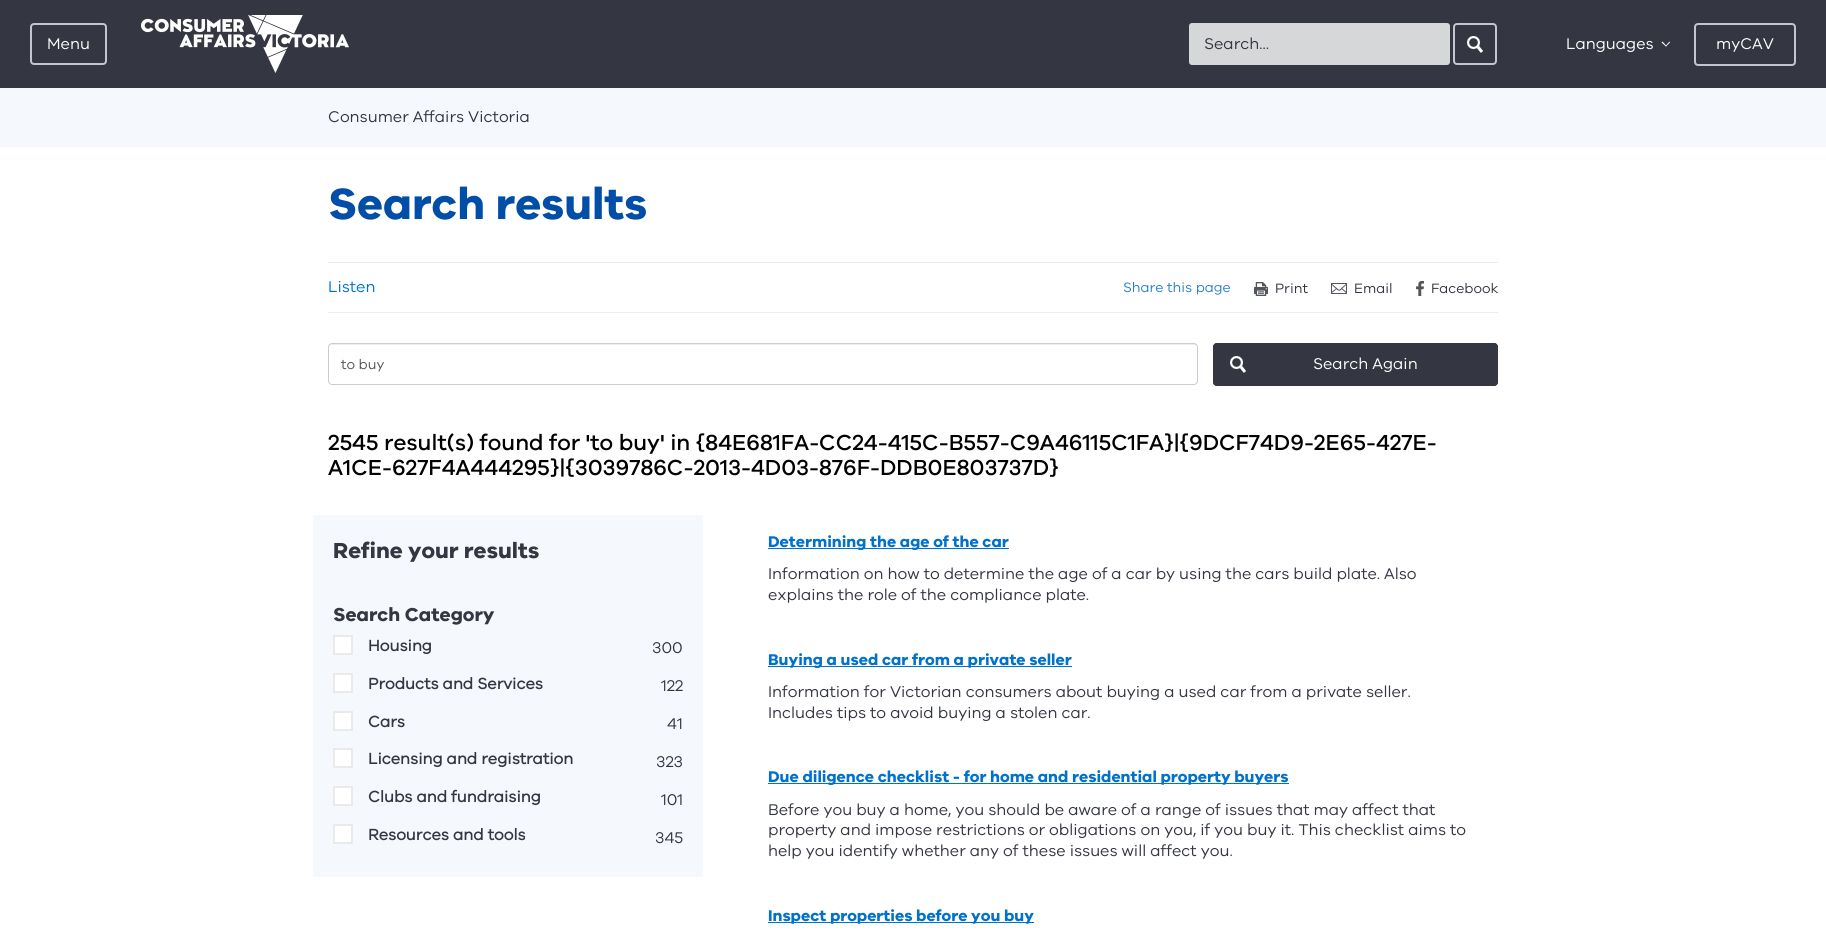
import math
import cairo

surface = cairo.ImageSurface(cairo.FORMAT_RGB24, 1826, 949)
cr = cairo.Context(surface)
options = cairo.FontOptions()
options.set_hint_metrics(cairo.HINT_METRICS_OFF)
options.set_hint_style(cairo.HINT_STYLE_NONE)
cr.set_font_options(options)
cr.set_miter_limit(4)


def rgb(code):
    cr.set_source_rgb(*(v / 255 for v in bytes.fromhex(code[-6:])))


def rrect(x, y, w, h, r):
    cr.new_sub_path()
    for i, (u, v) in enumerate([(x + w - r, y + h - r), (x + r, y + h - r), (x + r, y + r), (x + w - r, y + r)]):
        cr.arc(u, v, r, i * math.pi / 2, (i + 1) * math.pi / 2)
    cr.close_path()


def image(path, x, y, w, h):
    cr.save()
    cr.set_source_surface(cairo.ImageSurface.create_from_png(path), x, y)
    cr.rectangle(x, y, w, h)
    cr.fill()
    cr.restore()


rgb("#ffffff")
cr.paint()
rgb("#343741")
cr.rectangle(0, 0, 1826, 88)
cr.fill()
rrect(31, 24, 75, 40, 3)
rgb("#c3c6cf")
cr.stroke()
image("img/1.png", 141, 15, 208, 58)
rgb("#d6d7d9")
rrect(1189, 23, 261, 42, 3)
cr.fill()
image("img/2.png", 1467, 36, 16, 17)
rrect(1454, 24, 42, 40, 3)
rgb("#c3c6cf")
cr.stroke()
rgb("#ffffff")
cr.new_path()
cr.move_to(1670, 42.5)
cr.line_to(1666, 46.5)
cr.line_to(1665.5, 46)
cr.line_to(1669.5, 41.5)
cr.close_path()
cr.fill()
cr.new_path()
cr.move_to(1666.5, 46)
cr.line_to(1666, 46.5)
cr.line_to(1661.5, 42.5)
cr.line_to(1662.5, 41.5)
cr.close_path()
cr.fill()
rrect(1695, 24, 100, 41, 3)
rgb("#c3c6cf")
cr.stroke()
for x, y, w, h, color in [
    (0, 88, 1826, 59, "#f5f8fc"),
    (328, 262, 1170, 1, "#eaecf0"),
    (328, 312, 1170, 1, "#eaecf0"),
]:
    rgb(color)
    cr.rectangle(x, y, w, h)
    cr.fill()
image("img/3.png", 1254, 282, 14, 14)
image("img/4.png", 1331, 283, 16, 11)
image("img/5.png", 1416, 281, 8, 15)
rgb("#ececec")
cr.new_path()
cr.move_to(332, 345)
cr.line_to(1194, 345)
cr.curve_to(1196, 345, 1197, 346, 1197, 348)
cr.curve_to(1197, 346, 1196, 344, 1194, 344)
cr.line_to(332, 344)
cr.curve_to(330, 344, 329, 346, 329, 348)
cr.curve_to(329, 346, 330, 345, 332, 345)
cr.close_path()
cr.fill()
rrect(328.5, 343.5, 869, 41, 3.5)
rgb("#cccccc")
cr.set_line_width(1)
cr.stroke()
rgb("#343741")
rrect(1213, 343, 285, 43, 4)
cr.fill()
image("img/2.png", 1230, 356, 16, 17)
rrect(1214, 344, 283, 41, 3)
cr.set_line_width(2)
cr.stroke()
rgb("#f5f8fc")
cr.rectangle(313, 515, 390, 362)
cr.fill()
rgb("#ffffff")
cr.rectangle(334, 636, 18, 18)
cr.fill_preserve()
rgb("#eaeaea")
cr.stroke()
rgb("#ffffff")
cr.rectangle(334, 674, 18, 18)
cr.fill_preserve()
rgb("#eaeaea")
cr.stroke()
rgb("#ffffff")
cr.rectangle(334, 712, 18, 18)
cr.fill_preserve()
rgb("#eaeaea")
cr.stroke()
rgb("#ffffff")
cr.rectangle(334, 749, 18, 18)
cr.fill_preserve()
rgb("#eaeaea")
cr.stroke()
rgb("#ffffff")
cr.rectangle(334, 787, 18, 18)
cr.fill_preserve()
rgb("#eaeaea")
cr.stroke()
rgb("#ffffff")
cr.rectangle(334, 825, 18, 18)
cr.fill_preserve()
rgb("#eaeaea")
cr.stroke()
for x, y, w, h, color in [
    (768, 548, 241, 1, "#0072ce"),
    (768, 666, 304, 1, "#0072ce"),
    (768, 783, 521, 1, "#0072ce"),
    (768, 922, 266, 1, "#0072ce"),
]:
    rgb(color)
    cr.rectangle(x, y, w, h)
    cr.fill()
cr.select_font_face("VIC")
cr.set_font_size(16)
rgb("#ffffff")
cr.move_to(47, 49)
cr.show_text("Menu")
rgb("#343741")
cr.move_to(1204, 49)
cr.show_text("Search...")
rgb("#ffffff")
cr.move_to(1566, 49)
cr.show_text("Languages")
cr.move_to(1716, 49)
cr.show_text("myCAV")
rgb("#343741")
cr.move_to(328, 122)
cr.show_text("Consumer Affairs Victoria")
cr.select_font_face("VIC", cairo.FONT_SLANT_NORMAL, cairo.FONT_WEIGHT_BOLD)
cr.set_font_size(45)
rgb("#004ea8")
cr.move_to(328, 219)
cr.show_text("Search results")
cr.select_font_face("VIC")
cr.set_font_size(16)
rgb("#0072ce")
cr.move_to(328, 292)
cr.show_text("Listen")
cr.set_font_size(14)
rgb("#2c80ce")
cr.move_to(1123, 292)
cr.show_text("Share this page")
rgb("#343741")
for x, y, s in [
    (1275, 293, "Print"),
    (1354, 293, "Email"),
    (1431, 293, "Facebook"),
]:
    cr.move_to(x, y)
    cr.show_text(s)
rgb("#555555")
cr.move_to(341, 369)
cr.show_text("to buy")
cr.set_font_size(16)
rgb("#ffffff")
cr.move_to(1313, 369)
cr.show_text("Search Again")
cr.select_font_face("VIC Medium")
cr.set_font_size(22.4)
rgb("#000000")
cr.move_to(328, 450)
cr.show_text("2545 result(s) found for 'to buy' in {84E681FA-CC24-415C-B557-C9A46115C1FA}|{9DCF74D9-2E65-427E-")
cr.move_to(328, 475)
cr.show_text("A1CE-627F4A444295}|{3039786C-2013-4D03-876F-DDB0E803737D}")
cr.select_font_face("VIC", cairo.FONT_SLANT_NORMAL, cairo.FONT_WEIGHT_BOLD)
rgb("#343741")
cr.move_to(333, 558)
cr.show_text("Refine your results")
cr.set_font_size(19.25)
cr.move_to(333, 621)
cr.show_text("Search Category")
cr.select_font_face("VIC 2", cairo.FONT_SLANT_NORMAL, cairo.FONT_WEIGHT_BOLD)
cr.set_font_size(16)
cr.move_to(368, 651)
cr.show_text("Housing")
cr.select_font_face("VIC")
cr.move_to(652, 653)
cr.show_text("300")
cr.select_font_face("VIC 2", cairo.FONT_SLANT_NORMAL, cairo.FONT_WEIGHT_BOLD)
cr.move_to(368, 689)
cr.show_text("Products and Services")
cr.select_font_face("VIC")
cr.move_to(661, 691)
cr.show_text("122")
cr.select_font_face("VIC 2", cairo.FONT_SLANT_NORMAL, cairo.FONT_WEIGHT_BOLD)
cr.move_to(368, 727)
cr.show_text("Cars")
cr.select_font_face("VIC")
cr.move_to(667, 729)
cr.show_text("41")
cr.select_font_face("VIC 2", cairo.FONT_SLANT_NORMAL, cairo.FONT_WEIGHT_BOLD)
cr.move_to(368, 764)
cr.show_text("Licensing and registration")
cr.select_font_face("VIC")
cr.move_to(656, 767)
cr.show_text("323")
cr.select_font_face("VIC 2", cairo.FONT_SLANT_NORMAL, cairo.FONT_WEIGHT_BOLD)
cr.move_to(368, 802)
cr.show_text("Clubs and fundraising")
cr.select_font_face("VIC")
cr.move_to(661, 805)
cr.show_text("101")
cr.select_font_face("VIC 2", cairo.FONT_SLANT_NORMAL, cairo.FONT_WEIGHT_BOLD)
cr.move_to(368, 840)
cr.show_text("Resources and tools")
cr.select_font_face("VIC")
cr.move_to(655, 843)
cr.show_text("345")
cr.select_font_face("VIC", cairo.FONT_SLANT_NORMAL, cairo.FONT_WEIGHT_BOLD)
rgb("#0072ce")
cr.move_to(768, 547)
cr.show_text("Determining the age of the car")
cr.select_font_face("VIC")
rgb("#343741")
cr.move_to(768, 579)
cr.show_text("Information on how to determine the age of a car by using the cars build plate. Also")
cr.move_to(768, 600)
cr.show_text("explains the role of the compliance plate.")
cr.select_font_face("VIC", cairo.FONT_SLANT_NORMAL, cairo.FONT_WEIGHT_BOLD)
rgb("#0072ce")
cr.move_to(768, 665)
cr.show_text("Buying a used car from a private seller")
cr.select_font_face("VIC")
rgb("#343741")
cr.move_to(768, 697)
cr.show_text("Information for Victorian consumers about buying a used car from a private seller.")
cr.move_to(768, 718)
cr.show_text("Includes tips to avoid buying a stolen car.")
cr.select_font_face("VIC", cairo.FONT_SLANT_NORMAL, cairo.FONT_WEIGHT_BOLD)
rgb("#0072ce")
cr.move_to(768, 782)
cr.show_text("Due diligence checklist - for home and residential property buyers")
cr.select_font_face("VIC")
rgb("#343741")
for x, y, s in [
    (768, 815, "Before you buy a home, you should be aware of a range of issues that may affect that"),
    (768, 835, "property and impose restrictions or obligations on you, if you buy it. This checklist aims to"),
    (768, 856, "help you identify whether any of these issues will affect you."),
]:
    cr.move_to(x, y)
    cr.show_text(s)
cr.select_font_face("VIC", cairo.FONT_SLANT_NORMAL, cairo.FONT_WEIGHT_BOLD)
rgb("#0072ce")
cr.move_to(768, 921)
cr.show_text("Inspect properties before you buy")
surface.write_to_png("page.png")
